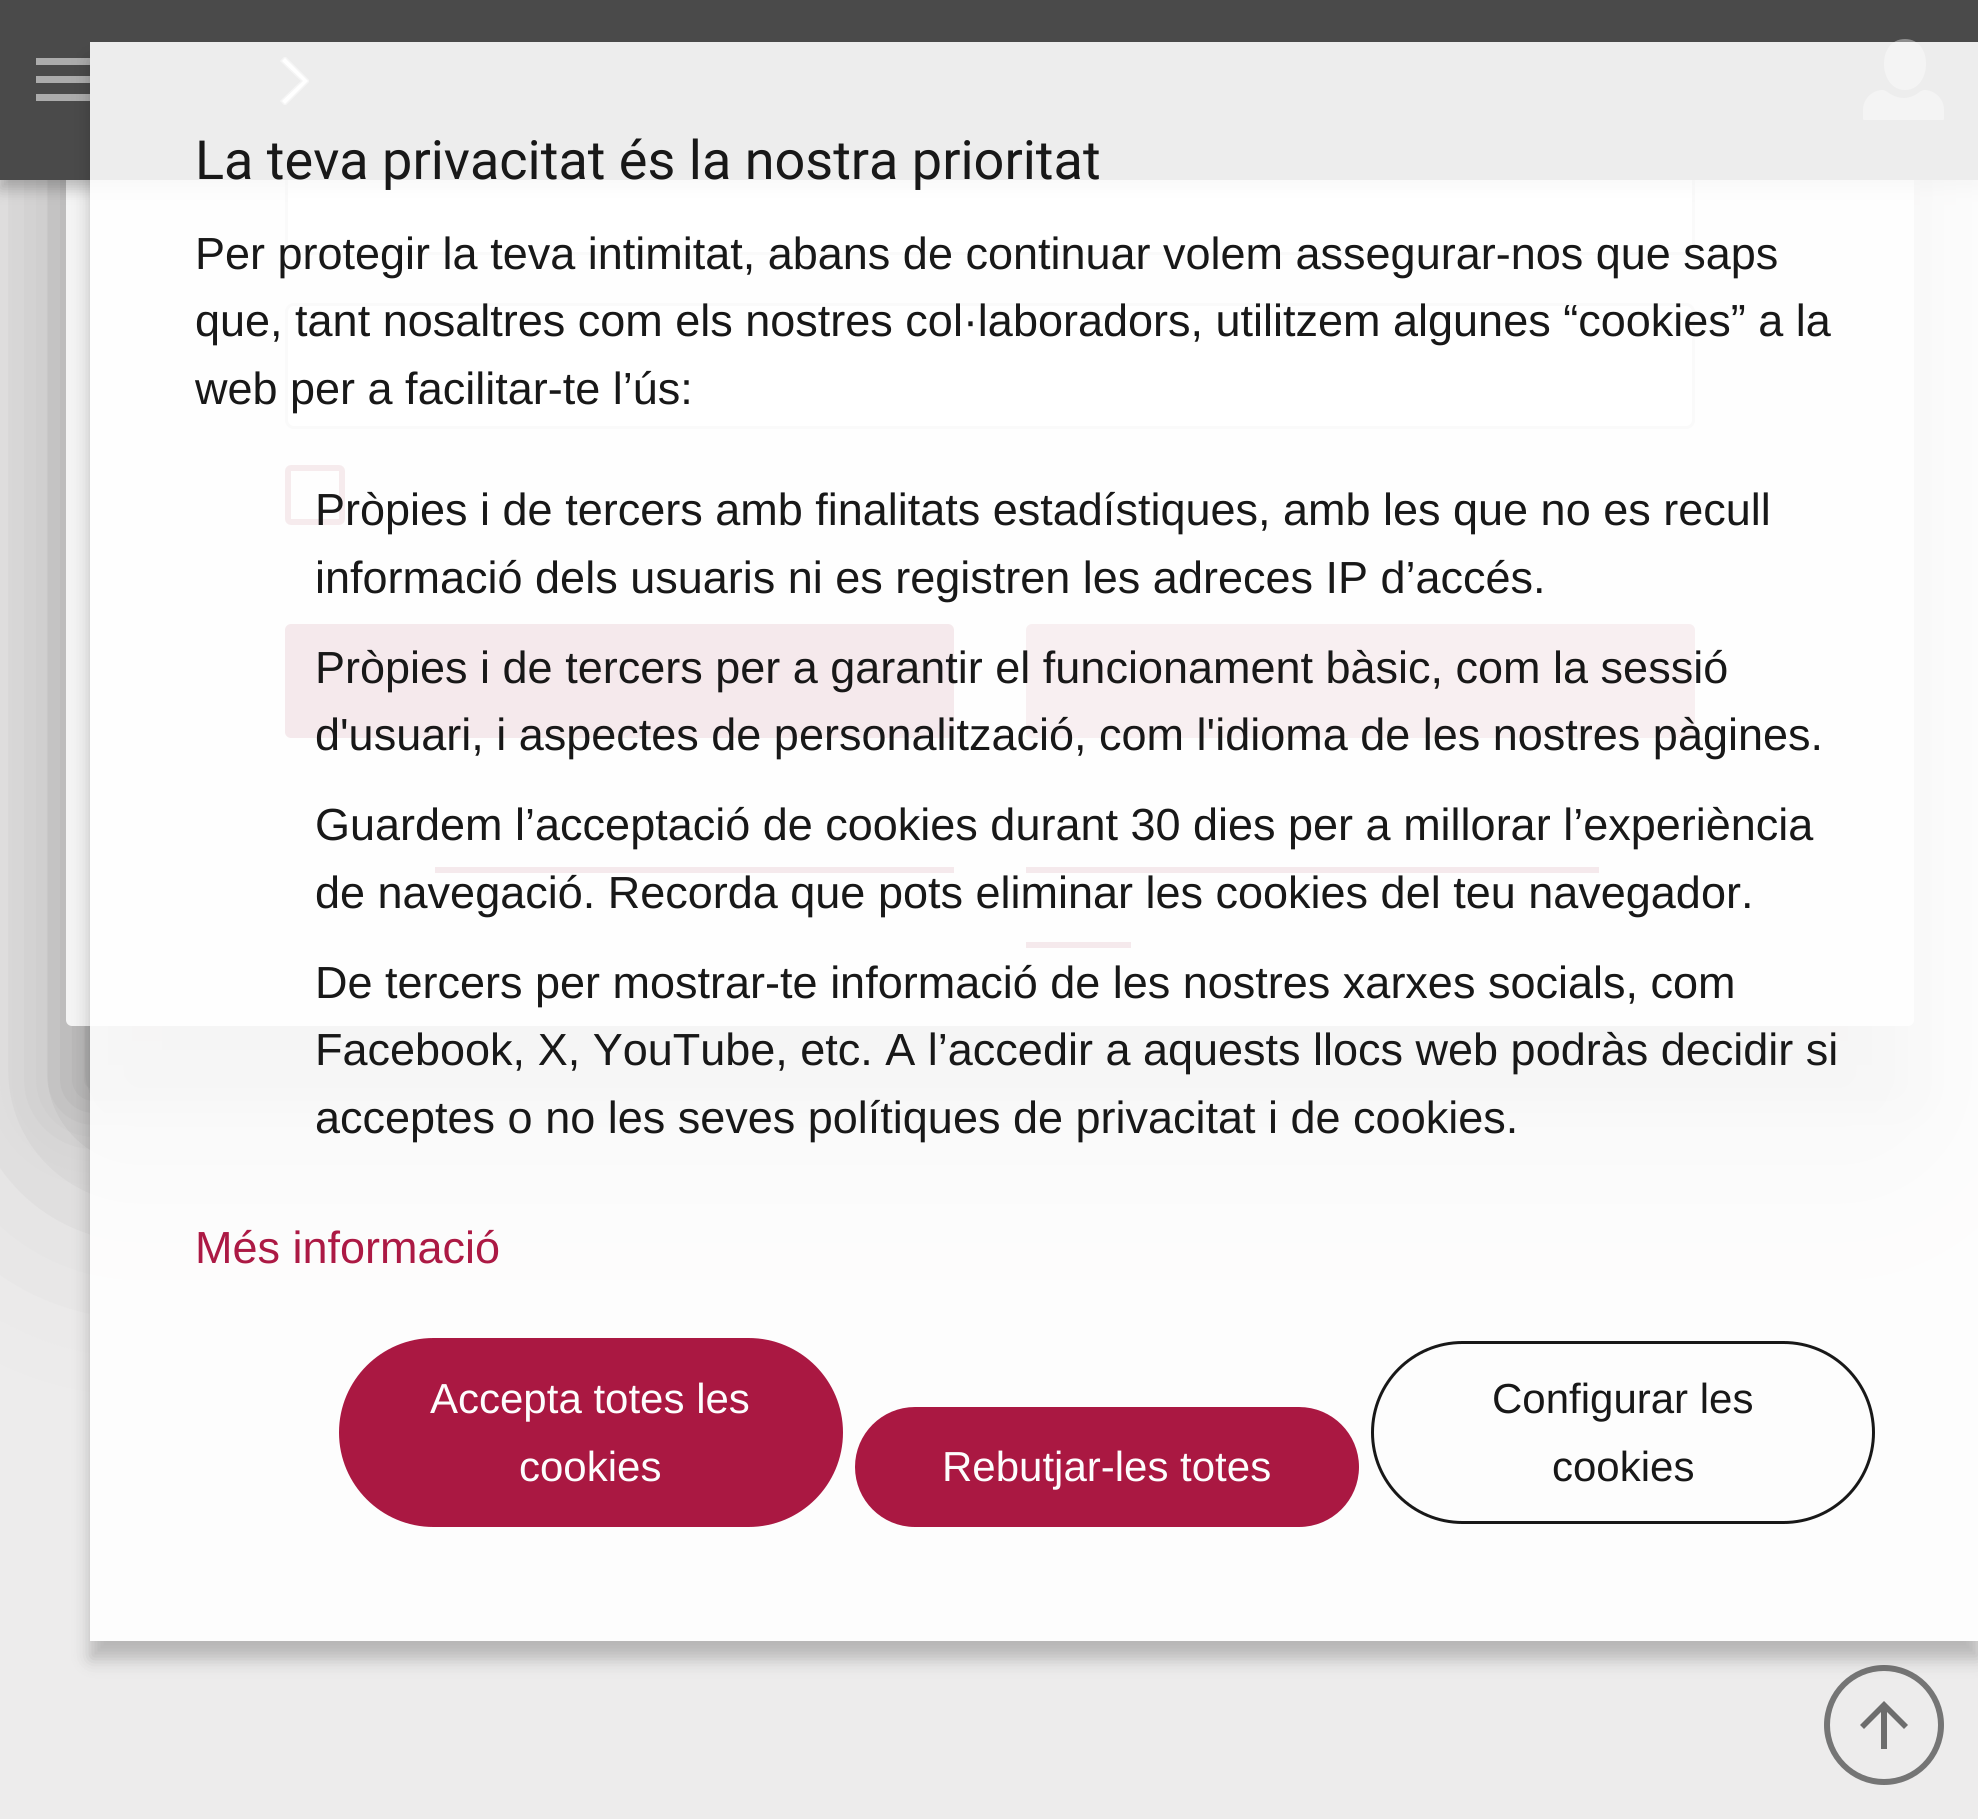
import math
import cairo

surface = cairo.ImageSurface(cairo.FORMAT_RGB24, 1978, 1819)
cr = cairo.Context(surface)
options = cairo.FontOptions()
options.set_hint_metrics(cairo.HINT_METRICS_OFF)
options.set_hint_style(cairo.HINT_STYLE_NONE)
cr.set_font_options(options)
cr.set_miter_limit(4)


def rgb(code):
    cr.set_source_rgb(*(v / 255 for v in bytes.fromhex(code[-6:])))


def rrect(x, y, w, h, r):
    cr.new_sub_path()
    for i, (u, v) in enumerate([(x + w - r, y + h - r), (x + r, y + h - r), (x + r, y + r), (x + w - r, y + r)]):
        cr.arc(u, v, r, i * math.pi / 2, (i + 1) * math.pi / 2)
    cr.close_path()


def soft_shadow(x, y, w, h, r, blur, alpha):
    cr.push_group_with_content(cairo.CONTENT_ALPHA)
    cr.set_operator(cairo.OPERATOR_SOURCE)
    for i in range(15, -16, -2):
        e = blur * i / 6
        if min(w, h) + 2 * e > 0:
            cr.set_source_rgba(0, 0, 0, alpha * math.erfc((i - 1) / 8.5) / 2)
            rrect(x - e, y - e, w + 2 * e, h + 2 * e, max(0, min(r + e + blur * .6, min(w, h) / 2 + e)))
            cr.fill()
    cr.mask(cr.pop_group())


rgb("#edecec")
cr.paint()
rgb("#000000")
soft_shadow(66, -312, 1848, 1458, 6, 115.5, 0.22)
soft_shadow(66, -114, 1848, 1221, 6, 36, 0.2)
rgb("#f4f4f4")
rrect(66, -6, 1848, 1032, 6)
cr.fill()
rgb("#ffffff")
rrect(286.5, 130.5, 1407, 123, 7.5)
cr.fill_preserve()
rgb("#c8c8c8")
cr.set_line_width(3)
cr.stroke()
rgb("#ffffff")
rrect(286.5, 304.5, 1407, 123, 7.5)
cr.fill_preserve()
rgb("#c8c8c8")
cr.stroke()
rrect(288, 468, 54, 54, 3)
rgb("#9f3249")
cr.set_line_width(6)
cr.stroke()
rgb("#971e39")
rrect(285, 624, 669, 114, 6)
cr.fill()
rgb("#b35e71")
rrect(1026, 624, 669, 114, 6)
cr.fill()
for x, y, w, h, color in [
    (435, 867, 519, 6, "#971e39"),
    (1026, 867, 573, 6, "#971e39"),
    (1026, 942, 105, 6, "#971e39"),
]:
    rgb(color)
    cr.rectangle(x, y, w, h)
    cr.fill()
rgb("#000000")
soft_shadow(0, 9, 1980, 180, 0, 7.5, 0.24)
rgb("#4a4a4a")
cr.rectangle(0, 0, 1978, 180)
cr.fill()
rgb("#acacac")
cr.set_fill_rule(cairo.FILL_RULE_EVEN_ODD)
cr.new_path()
cr.move_to(36, 101)
cr.line_to(90, 101)
cr.line_to(90, 94)
cr.line_to(36, 94)
cr.close_path()
cr.move_to(36, 83)
cr.line_to(90, 83)
cr.line_to(90, 76)
cr.line_to(36, 76)
cr.close_path()
cr.move_to(36, 58)
cr.line_to(36, 65)
cr.line_to(90, 65)
cr.line_to(90, 58)
cr.close_path()
cr.fill()
rgb("#ffffff")
cr.new_path()
cr.move_to(285, 57)
cr.line_to(281, 61)
cr.line_to(302, 81)
cr.line_to(281, 101)
cr.line_to(285, 105)
cr.line_to(309, 81)
cr.close_path()
cr.fill()
cr.save()
cr.set_fill_rule(cairo.FILL_RULE_WINDING)
cr.rectangle(279, 57, 30, 48)
cr.clip()
cr.new_path()
cr.move_to(285, 57)
cr.line_to(281, 61)
cr.line_to(302, 81)
cr.line_to(281, 101)
cr.line_to(285, 105)
cr.line_to(309, 81)
cr.close_path()
rgb("#9b9b9b")
cr.set_line_width(1.5)
cr.stroke()
cr.restore()
rgb("#8e8e8e")
cr.new_path()
cr.move_to(1883, 90)
cr.curve_to(1872, 90, 1863, 99, 1863, 110)
cr.line_to(1863, 119)
cr.curve_to(1863, 120, 1864, 120, 1864, 120)
cr.line_to(1943, 120)
cr.curve_to(1943, 120, 1944, 120, 1944, 119)
cr.line_to(1944, 110)
cr.curve_to(1944, 99, 1935, 90, 1924, 90)
cr.line_to(1921, 91)
cr.curve_to(1916, 95, 1910, 98, 1904, 98)
cr.curve_to(1897, 98, 1891, 95, 1886, 91)
cr.close_path()
cr.move_to(1905, 39)
cr.curve_to(1876, 39, 1878, 90, 1905, 90)
cr.curve_to(1932, 90, 1934, 39, 1905, 39)
cr.close_path()
cr.fill()
rgb("#6d6d6d")
cr.new_path()
cr.move_to(1860, 1725)
cr.line_to(1864, 1729)
cr.line_to(1881, 1712)
cr.line_to(1881, 1749)
cr.line_to(1887, 1749)
cr.line_to(1887, 1712)
cr.line_to(1904, 1729)
cr.line_to(1908, 1725)
cr.line_to(1884, 1701)
cr.close_path()
cr.fill()
rgb("#757575")
cr.new_path()
cr.move_to(1884, 1785)
cr.curve_to(1917, 1785, 1944, 1758, 1944, 1725)
cr.curve_to(1944, 1692, 1917, 1665, 1884, 1665)
cr.curve_to(1851, 1665, 1824, 1692, 1824, 1725)
cr.curve_to(1824, 1758, 1851, 1785, 1884, 1785)
cr.close_path()
cr.move_to(1884, 1779)
cr.curve_to(1854, 1779, 1830, 1755, 1830, 1725)
cr.curve_to(1830, 1695, 1854, 1671, 1884, 1671)
cr.curve_to(1914, 1671, 1938, 1695, 1938, 1725)
cr.curve_to(1938, 1755, 1914, 1779, 1884, 1779)
cr.close_path()
cr.fill()
cr.save()
cr.new_path()
cr.move_to(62, 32)
cr.line_to(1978, 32)
cr.line_to(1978, 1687)
cr.line_to(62, 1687)
cr.close_path()
cr.move_to(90, 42)
cr.line_to(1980, 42)
cr.line_to(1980, 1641)
cr.line_to(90, 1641)
cr.close_path()
cr.clip()
rgb("#000000")
soft_shadow(90, 60, 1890, 1599, 0, 9, 0.23)
cr.restore()
cr.set_source_rgba(1, 1, 1, 0.9)
cr.rectangle(90, 42, 1888, 1599)
cr.fill()
rgb("#aa1842")
rrect(342, 1341, 498, 183, 91.5)
cr.fill_preserve()
cr.stroke()
rrect(858, 1410, 498, 114, 57)
cr.fill_preserve()
cr.stroke()
rrect(1372.5, 1342.5, 501, 180, 90)
rgb("#181818")
cr.set_line_width(3)
cr.stroke()
cr.select_font_face("Roboto")
cr.set_font_size(54)
cr.move_to(195, 179)
cr.show_text("La teva privacitat és la nostra prioritat")
cr.select_font_face("Liberation Sans")
cr.set_font_size(45)
for x, y, s in [
    (195, 269, "Per protegir la teva intimitat, abans de continuar volem assegurar-nos que saps"),
    (195, 336, "que, tant nosaltres com els nostres col·laboradors, utilitzem algunes “cookies” a la"),
    (195, 404, "web per a facilitar-te l’ús:"),
    (315, 525, "Pròpies i de tercers amb finalitats estadístiques, amb les que no es recull"),
    (315, 593, "informació dels usuaris ni es registren les adreces IP d’accés."),
    (315, 683, "Pròpies i de tercers per a garantir el funcionament bàsic, com la sessió"),
    (315, 750, "d'usuari, i aspectes de personalització, com l'idioma de les nostres pàgines."),
    (315, 840, "Guardem l’acceptació de cookies durant 30 dies per a millorar l’experiència"),
    (315, 908, "de navegació. Recorda que pots eliminar les cookies del teu navegador."),
    (315, 998, "De tercers per mostrar-te informació de les nostres xarxes socials, com"),
    (315, 1065, "Facebook, X, YouTube, etc. A l’accedir a aquests llocs web podràs decidir si"),
    (315, 1133, "acceptes o no les seves polítiques de privacitat i de cookies."),
]:
    cr.move_to(x, y)
    cr.show_text(s)
rgb("#ac1944")
cr.move_to(195, 1263)
cr.show_text("Més informació")
cr.set_font_size(42)
rgb("#fdfdfd")
for x, y, s in [
    (430, 1413, "Accepta totes les"),
    (519, 1481, "cookies"),
    (942, 1481, "Rebutjar-les totes"),
]:
    cr.move_to(x, y)
    cr.show_text(s)
rgb("#181818")
cr.move_to(1492, 1413)
cr.show_text("Configurar les")
cr.move_to(1552, 1481)
cr.show_text("cookies")
surface.write_to_png("page.png")
